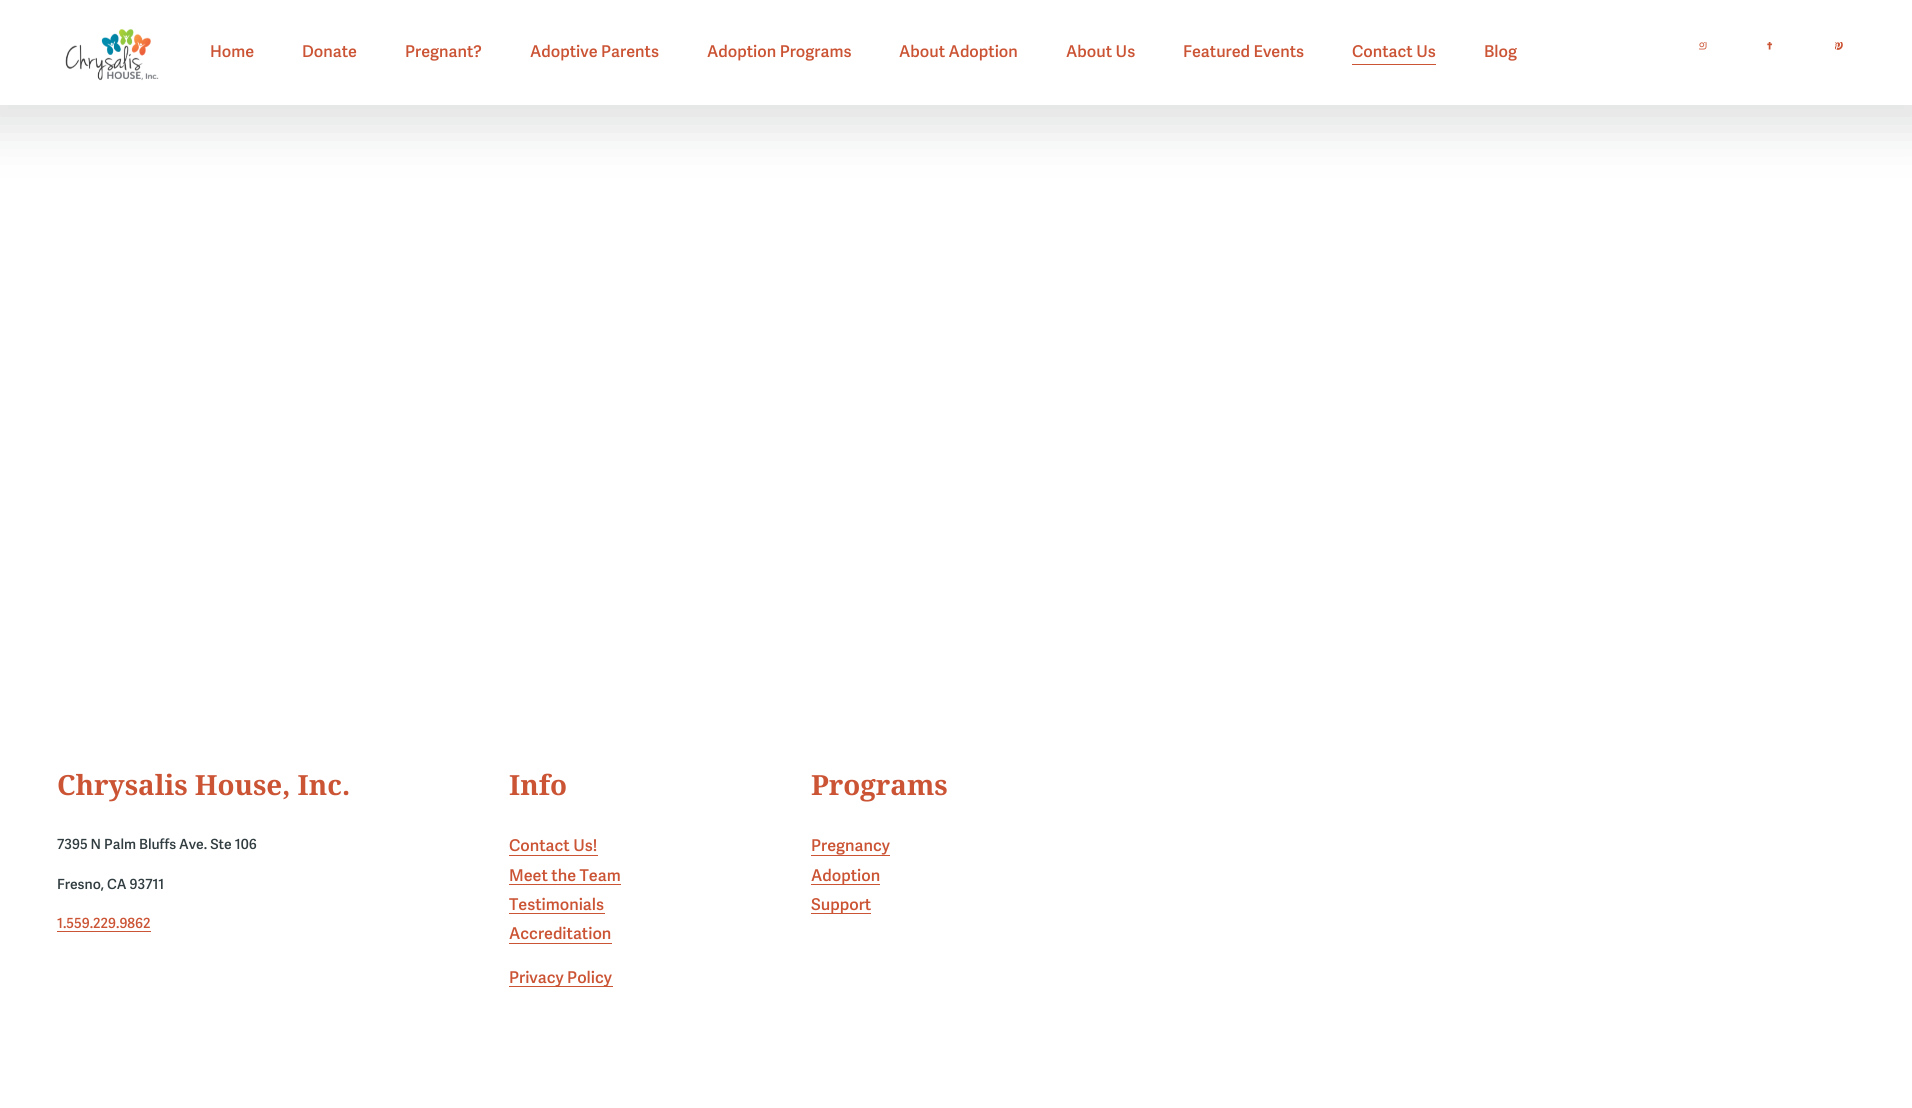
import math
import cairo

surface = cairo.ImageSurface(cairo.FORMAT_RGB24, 1912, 1108)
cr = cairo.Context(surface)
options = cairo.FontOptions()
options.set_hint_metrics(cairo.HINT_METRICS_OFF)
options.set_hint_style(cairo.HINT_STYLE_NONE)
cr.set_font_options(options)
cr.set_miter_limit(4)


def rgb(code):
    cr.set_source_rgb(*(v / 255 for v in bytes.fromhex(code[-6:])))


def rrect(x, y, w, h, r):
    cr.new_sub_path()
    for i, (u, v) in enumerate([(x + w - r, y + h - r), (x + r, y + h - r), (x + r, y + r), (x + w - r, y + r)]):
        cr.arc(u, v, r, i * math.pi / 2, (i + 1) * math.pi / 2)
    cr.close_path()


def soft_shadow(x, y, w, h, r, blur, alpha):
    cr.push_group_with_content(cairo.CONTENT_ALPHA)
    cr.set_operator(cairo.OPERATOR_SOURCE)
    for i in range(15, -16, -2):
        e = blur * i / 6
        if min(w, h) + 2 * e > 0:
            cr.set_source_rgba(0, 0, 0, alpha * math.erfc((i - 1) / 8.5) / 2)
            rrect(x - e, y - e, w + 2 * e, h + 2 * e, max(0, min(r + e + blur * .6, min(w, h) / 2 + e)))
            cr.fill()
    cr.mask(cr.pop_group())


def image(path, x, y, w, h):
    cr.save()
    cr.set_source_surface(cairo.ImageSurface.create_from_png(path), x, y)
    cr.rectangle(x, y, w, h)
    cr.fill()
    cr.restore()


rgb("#ffffff")
cr.paint()
cr.save()
cr.rectangle(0, 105, 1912, 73)
cr.clip()
rgb("#e1e2e3")
soft_shadow(-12, 0, 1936, 129, 0, 24, 1)
cr.restore()
image("img/1.png", 65, 29, 94, 52)
rgb("#cb5435")
cr.rectangle(1352, 64, 84, 1)
cr.fill()
image("img/2.png", 1699, 42, 8, 8)
image("img/3.png", 1767, 42, 6, 8)
image("img/4.png", 1835, 42, 8, 8)
for x, y, w, h, color in [
    (57, 931, 94, 1, "#cb5435"),
    (509, 855, 89, 1, "#cb5435"),
    (509, 884, 112, 1, "#cb5435"),
    (509, 913, 96, 1, "#cb5435"),
    (509, 943, 103, 1, "#cb5435"),
    (509, 986, 104, 1, "#cb5435"),
    (811, 855, 79, 1, "#cb5435"),
    (811, 884, 69, 1, "#cb5435"),
    (811, 913, 60, 1, "#cb5435"),
]:
    rgb(color)
    cr.rectangle(x, y, w, h)
    cr.fill()
cr.select_font_face("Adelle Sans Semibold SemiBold")
cr.set_font_size(16.25)
for x, y, s in [
    (210, 57, "Home"),
    (302, 57, "Donate"),
    (405, 57, "Pregnant?"),
    (530, 57, "Adoptive Parents"),
    (707, 57, "Adoption Programs"),
    (899, 57, "About Adoption"),
    (1066, 57, "About Us"),
    (1183, 57, "Featured Events"),
    (1352, 57, "Contact Us"),
    (1484, 57, "Blog"),
]:
    cr.move_to(x, y)
    cr.show_text(s)
cr.select_font_face("Noto Serif", cairo.FONT_SLANT_NORMAL, cairo.FONT_WEIGHT_BOLD)
cr.set_font_size(27.75)
cr.move_to(57, 795)
cr.show_text("Chrysalis House, Inc.")
cr.select_font_face("Adelle Sans Semibold SemiBold")
cr.set_font_size(14)
rgb("#313d41")
cr.move_to(57, 849)
cr.show_text("7395 N Palm Bluffs Ave. Ste 106")
cr.move_to(57, 889)
cr.show_text("Fresno, CA 93711")
rgb("#cb5435")
cr.move_to(57, 928)
cr.show_text("1.559.229.9862")
cr.select_font_face("Noto Serif", cairo.FONT_SLANT_NORMAL, cairo.FONT_WEIGHT_BOLD)
cr.set_font_size(27.75)
cr.move_to(509, 795)
cr.show_text("Info")
cr.select_font_face("Adelle Sans Semibold SemiBold")
cr.set_font_size(16.25)
for x, y, s in [
    (509, 851, "Contact Us!"),
    (509, 881, "Meet the Team"),
    (509, 910, "Testimonials"),
    (509, 939, "Accreditation"),
    (509, 983, "Privacy Policy"),
]:
    cr.move_to(x, y)
    cr.show_text(s)
cr.select_font_face("Noto Serif", cairo.FONT_SLANT_NORMAL, cairo.FONT_WEIGHT_BOLD)
cr.set_font_size(27.75)
cr.move_to(811, 795)
cr.show_text("Programs")
cr.select_font_face("Adelle Sans Semibold SemiBold")
cr.set_font_size(16.25)
for x, y, s in [
    (811, 851, "Pregnancy"),
    (811, 881, "Adoption"),
    (811, 910, "Support"),
]:
    cr.move_to(x, y)
    cr.show_text(s)
surface.write_to_png("page.png")
